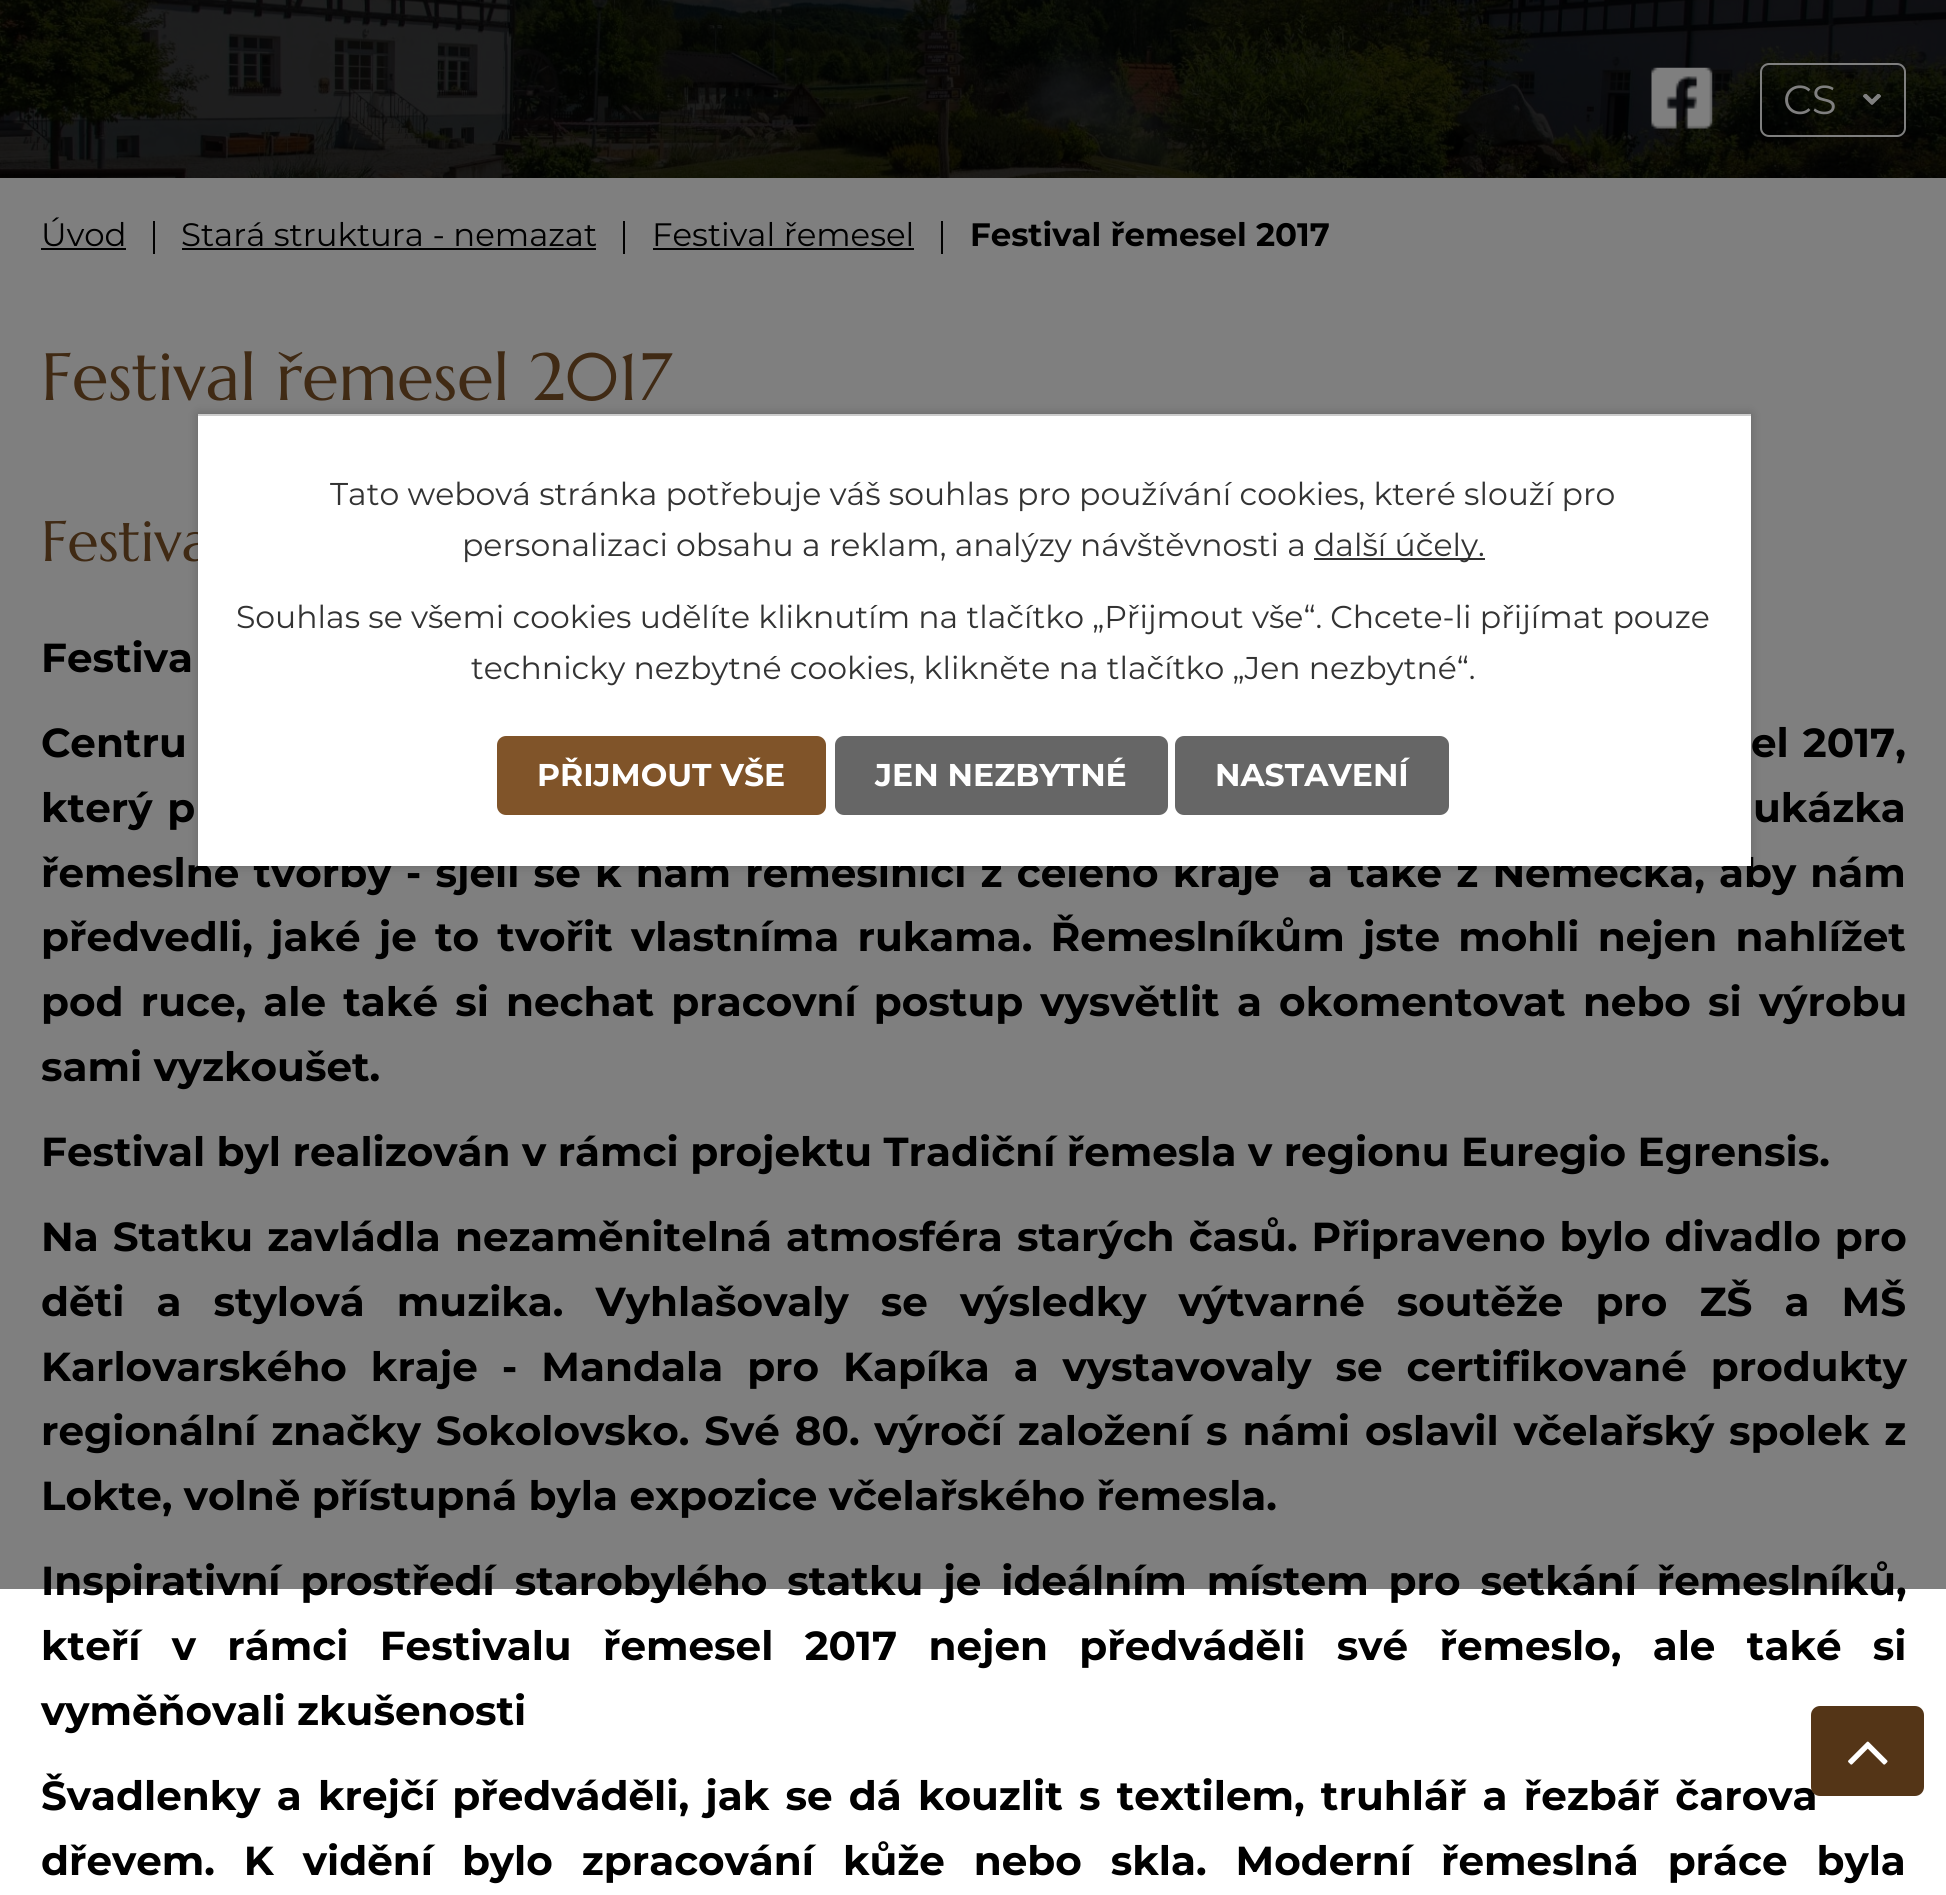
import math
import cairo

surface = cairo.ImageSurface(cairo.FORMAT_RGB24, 1946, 1895)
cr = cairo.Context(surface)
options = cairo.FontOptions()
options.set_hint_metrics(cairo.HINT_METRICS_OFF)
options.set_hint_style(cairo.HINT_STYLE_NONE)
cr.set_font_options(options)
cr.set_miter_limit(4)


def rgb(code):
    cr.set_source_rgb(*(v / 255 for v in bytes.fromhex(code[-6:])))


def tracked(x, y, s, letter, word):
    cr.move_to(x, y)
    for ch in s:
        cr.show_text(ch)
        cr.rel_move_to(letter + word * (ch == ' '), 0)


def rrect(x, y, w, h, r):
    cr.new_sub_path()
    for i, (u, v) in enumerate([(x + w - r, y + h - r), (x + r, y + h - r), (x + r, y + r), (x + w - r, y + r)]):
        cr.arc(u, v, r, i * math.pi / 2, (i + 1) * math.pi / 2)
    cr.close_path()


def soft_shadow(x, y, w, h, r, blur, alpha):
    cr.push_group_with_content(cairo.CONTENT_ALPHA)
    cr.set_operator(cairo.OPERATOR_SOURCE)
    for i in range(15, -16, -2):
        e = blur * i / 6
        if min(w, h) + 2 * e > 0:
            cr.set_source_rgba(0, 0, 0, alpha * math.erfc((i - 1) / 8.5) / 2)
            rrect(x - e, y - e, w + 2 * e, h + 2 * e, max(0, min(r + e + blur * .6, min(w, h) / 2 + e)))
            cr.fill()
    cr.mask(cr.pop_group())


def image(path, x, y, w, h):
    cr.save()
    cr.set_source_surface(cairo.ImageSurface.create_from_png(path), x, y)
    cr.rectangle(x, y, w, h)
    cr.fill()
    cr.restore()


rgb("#ffffff")
cr.paint()
image("img/1.png", 0, 0, 1946, 178)
image("img/2.png", 1651, 67, 62, 62)
rrect(1761, 64, 144, 72, 8)
rgb("#ffffff")
cr.stroke()
image("img/3.png", 1863, 94, 18, 11)
for x, y, w, h, color in [
    (41, 248, 85, 2, "#000000"),
    (153, 221, 2, 33, "#000000"),
    (182, 248, 414, 2, "#000000"),
    (623, 221, 2, 33, "#000000"),
    (653, 248, 261, 2, "#000000"),
    (941, 221, 2, 33, "#000000"),
]:
    rgb(color)
    cr.rectangle(x, y, w, h)
    cr.fill()
cr.select_font_face("Montserrat")
cr.set_font_size(40.5)
rgb("#ffffff")
cr.move_to(1783, 114)
cr.show_text("CS")
cr.set_font_size(32.4)
rgb("#000000")
for x, y, s in [
    (41, 246, "Úvod"),
    (181, 246, "Stará struktura - nemazat"),
    (652, 246, "Festival řemesel"),
]:
    cr.move_to(x, y)
    cr.show_text(s)
cr.select_font_face("Montserrat", cairo.FONT_SLANT_NORMAL, cairo.FONT_WEIGHT_BOLD)
cr.move_to(970, 246)
cr.show_text("Festival řemesel 2017")
cr.select_font_face("Marcellus")
cr.set_font_size(66.75)
rgb("#805429")
cr.move_to(41, 400)
cr.show_text("Festival řemesel 2017")
cr.set_font_size(57)
cr.move_to(41, 561)
cr.show_text("Festiva")
cr.select_font_face("Montserrat", cairo.FONT_SLANT_NORMAL, cairo.FONT_WEIGHT_BOLD)
cr.set_font_size(40.5)
rgb("#000000")
cr.move_to(41, 672)
cr.show_text("Festiva")
tracked(41, 757, "Centru", 0, 2.6)
tracked(1751, 757, "el 2017,", 0, 2.6)
tracked(41, 822, "který p", 0, 3.4)
tracked(1753, 822, "ukázka", 0, 3.4)
tracked(41, 887, "řemeslné tvorby - sjeli se k nám řemeslníci z celého kraje  a také z Německa, aby nám", 0, 2.75)
tracked(41, 951, "předvedli, jaké je to tvořit vlastníma rukama. Řemeslníkům jste mohli nejen nahlížet", 0, 6.75)
tracked(41, 1016, "pod ruce, ale také si nechat pracovní postup vysvětlit a okomentovat nebo si výrobu", 0, 5.75)
cr.move_to(41, 1081)
cr.show_text("sami vyzkoušet.")
cr.move_to(41, 1166)
cr.show_text("Festival byl realizován v rámci projektu Tradiční řemesla v regionu Euregio Egrensis.")
tracked(41, 1251, "Na Statku zavládla nezaměnitelná atmosféra starých časů. Připraveno bylo divadlo pro", 0, 2.6)
tracked(41, 1316, "děti a stylová muzika. Vyhlašovaly se výsledky výtvarné soutěže pro ZŠ a MŠ", 0, 20.6)
tracked(41, 1381, "Karlovarského kraje - Mandala pro Kapíka a vystavovaly se certifikované produkty", 0, 12.5)
tracked(41, 1445, "regionální značky Sokolovsko. Své 80. výročí založení s námi oslavil včelařský spolek z", 0, 3.4)
cr.move_to(41, 1510)
cr.show_text("Lokte, volně přístupná byla expozice včelařského řemesla.")
tracked(41, 1595, "Inspirativní prostředí starobylého statku je ideálním místem pro setkání řemeslníků,", 0, 8.5)
tracked(41, 1660, "kteří v rámci Festivalu řemesel 2017 nejen předváděli své řemeslo, ale také si", 0, 19.9)
cr.move_to(41, 1725)
cr.show_text("vyměňovali zkušenosti")
tracked(41, 1810, "Švadlenky a krejčí předváděli, jak se dá kouzlit s textilem, truhlář a řezbář čarova", 0, 4.75)
tracked(41, 1875, "dřevem. K vidění bylo zpracování kůže nebo skla. Moderní řemeslná práce byla", 0, 17.5)
rgb("#543517")
rrect(1811, 1706, 113, 90, 9)
cr.fill()
image("img/4.png", 1848, 1741, 40, 24)
cr.set_source_rgba(0, 0, 0, 0.5)
cr.rectangle(0, 0, 1946, 1589)
cr.fill()
rgb("#000000")
soft_shadow(198, 414, 1553, 452, 0, 5.5, 0.2)
rgb("#ffffff")
cr.rectangle(198, 416, 1553, 450)
cr.fill()
rgb("#cccccc")
cr.rectangle(198, 414, 1553, 2)
cr.fill()
cr.select_font_face("Montserrat")
cr.set_font_size(31.5)
rgb("#333333")
cr.move_to(330, 505)
cr.show_text("Tato webová stránka potřebuje váš souhlas pro používání cookies, které slouží pro")
cr.move_to(462, 556)
cr.show_text("personalizaci obsahu a reklam, analýzy návštěvnosti a")
cr.rectangle(1314, 558, 171, 2)
cr.fill()
for x, y, s in [
    (1314, 556, "další účely."),
    (236, 628, "Souhlas se všemi cookies udělíte kliknutím na tlačítko „Přijmout vše“. Chcete-li přijímat pouze"),
    (471, 679, "technicky nezbytné cookies, klikněte na tlačítko „Jen nezbytné“."),
]:
    cr.move_to(x, y)
    cr.show_text(s)
rgb("#805429")
rrect(497, 736, 329, 79, 9)
cr.fill()
cr.select_font_face("Montserrat", cairo.FONT_SLANT_NORMAL, cairo.FONT_WEIGHT_BOLD)
rgb("#ffffff")
cr.move_to(537, 786)
cr.show_text("PŘIJMOUT VŠE")
rgb("#666666")
rrect(835, 736, 333, 79, 9)
cr.fill()
rgb("#ffffff")
cr.move_to(875, 786)
cr.show_text("JEN NEZBYTNÉ")
rgb("#666666")
rrect(1175, 736, 274, 79, 9)
cr.fill()
rgb("#ffffff")
cr.move_to(1215, 786)
cr.show_text("NASTAVENÍ")
surface.write_to_png("page.png")
